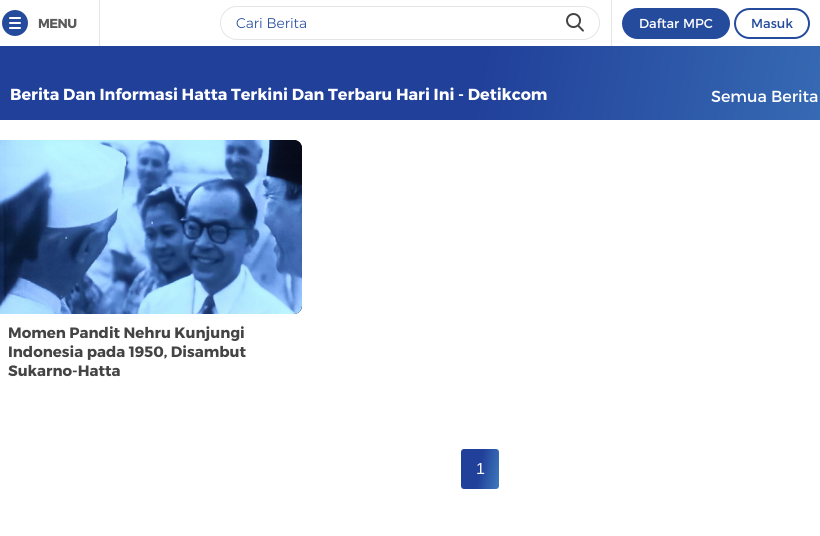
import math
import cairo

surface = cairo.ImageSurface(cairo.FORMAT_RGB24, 820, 536)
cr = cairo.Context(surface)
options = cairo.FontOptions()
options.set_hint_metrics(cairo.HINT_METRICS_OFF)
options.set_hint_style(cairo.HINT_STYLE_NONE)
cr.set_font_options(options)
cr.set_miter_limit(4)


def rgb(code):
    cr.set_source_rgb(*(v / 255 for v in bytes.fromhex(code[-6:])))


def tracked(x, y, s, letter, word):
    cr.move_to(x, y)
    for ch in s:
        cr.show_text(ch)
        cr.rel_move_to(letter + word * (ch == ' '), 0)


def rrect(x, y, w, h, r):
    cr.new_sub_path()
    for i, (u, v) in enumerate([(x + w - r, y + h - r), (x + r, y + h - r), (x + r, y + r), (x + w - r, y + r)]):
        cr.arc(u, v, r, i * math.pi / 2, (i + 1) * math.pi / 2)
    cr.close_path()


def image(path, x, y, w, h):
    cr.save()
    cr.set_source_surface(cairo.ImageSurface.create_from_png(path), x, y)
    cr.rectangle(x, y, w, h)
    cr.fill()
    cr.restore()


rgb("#ffffff")
cr.paint()
rgb("#e5e5e5")
cr.rectangle(99, 0, 1, 46)
cr.fill()
rgb("#244b9c")
cr.arc(15, 23, 13, 0, 2 * math.pi)
cr.fill()
rgb("#ffffff")
rrect(9, 17, 12, 2, 1)
cr.fill()
rrect(9, 22, 12, 2, 1)
cr.fill()
rrect(9, 27, 12, 2, 1)
cr.fill()
rrect(220.5, 6.5, 379, 33, 16.5)
rgb("#e5e5e5")
cr.set_line_width(1)
cr.stroke()
image("img/1.png", 566, 13, 18, 19)
cr.rectangle(611, 0, 1, 46)
cr.fill()
rgb("#244b9c")
rrect(623, 9, 106, 29, 14.5)
cr.fill_preserve()
cr.set_line_width(2)
cr.stroke()
rrect(735, 9, 74, 29, 14.5)
cr.stroke()
gradient = cairo.LinearGradient(8, -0.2, 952, 166)
gradient.add_color_stop_rgba(0.5, 0.129, 0.251, 0.604, 1)
gradient.add_color_stop_rgba(1, 0.247, 0.482, 0.741, 1)
cr.set_source(gradient)
cr.rectangle(0, 46, 820, 74)
cr.fill()
rgb("#000000")
rrect(-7, 140, 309, 174, 8)
cr.fill()
image("img/2.png", 0, 140, 302, 174)
cr.save()
rrect(460, 448, 40, 42, 4)
cr.clip()
gradient = cairo.LinearGradient(458, 465, 502, 473)
gradient.add_color_stop_rgba(0.5, 0.129, 0.251, 0.604, 1)
gradient.add_color_stop_rgba(1, 0.247, 0.482, 0.741, 1)
cr.set_source(gradient)
cr.rectangle(461, 449, 38, 40)
cr.fill()
cr.restore()
rrect(460.5, 448.5, 39, 41, 3.5)
rgb("#ffffff")
cr.set_line_width(1)
cr.stroke()
cr.select_font_face("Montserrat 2", cairo.FONT_SLANT_NORMAL, cairo.FONT_WEIGHT_BOLD)
cr.set_font_size(13)
rgb("#5b5b5b")
tracked(38, 28, "MENU", -0.5, 0)
cr.select_font_face("Montserrat Light")
cr.set_font_size(14)
rgb("#244b9c")
cr.move_to(236, 28)
cr.show_text("Cari Berita")
cr.select_font_face("Montserrat 2")
cr.set_font_size(13)
rgb("#ffffff")
cr.move_to(639, 28)
cr.show_text("Daftar MPC")
rgb("#244b9c")
cr.move_to(751, 28)
cr.show_text("Masuk")
cr.select_font_face("Montserrat", cairo.FONT_SLANT_NORMAL, cairo.FONT_WEIGHT_BOLD)
cr.set_font_size(16)
rgb("#ffffff")
cr.move_to(10, 100)
cr.show_text("Berita Dan Informasi Hatta Terkini Dan Terbaru Hari Ini - Detikcom")
cr.select_font_face("Montserrat")
cr.move_to(711, 102)
cr.show_text("Semua Berita")
cr.select_font_face("Montserrat", cairo.FONT_SLANT_NORMAL, cairo.FONT_WEIGHT_BOLD)
cr.set_font_size(15)
rgb("#444444")
for x, y, s in [
    (8, 338, "Momen Pandit Nehru Kunjungi"),
    (8, 357, "Indonesia pada 1950, Disambut"),
    (8, 376, "Sukarno-Hatta"),
]:
    cr.move_to(x, y)
    cr.show_text(s)
cr.select_font_face("Liberation Sans")
cr.set_font_size(16)
rgb("#ffffff")
cr.move_to(476, 474)
cr.show_text("1")
surface.write_to_png("page.png")
